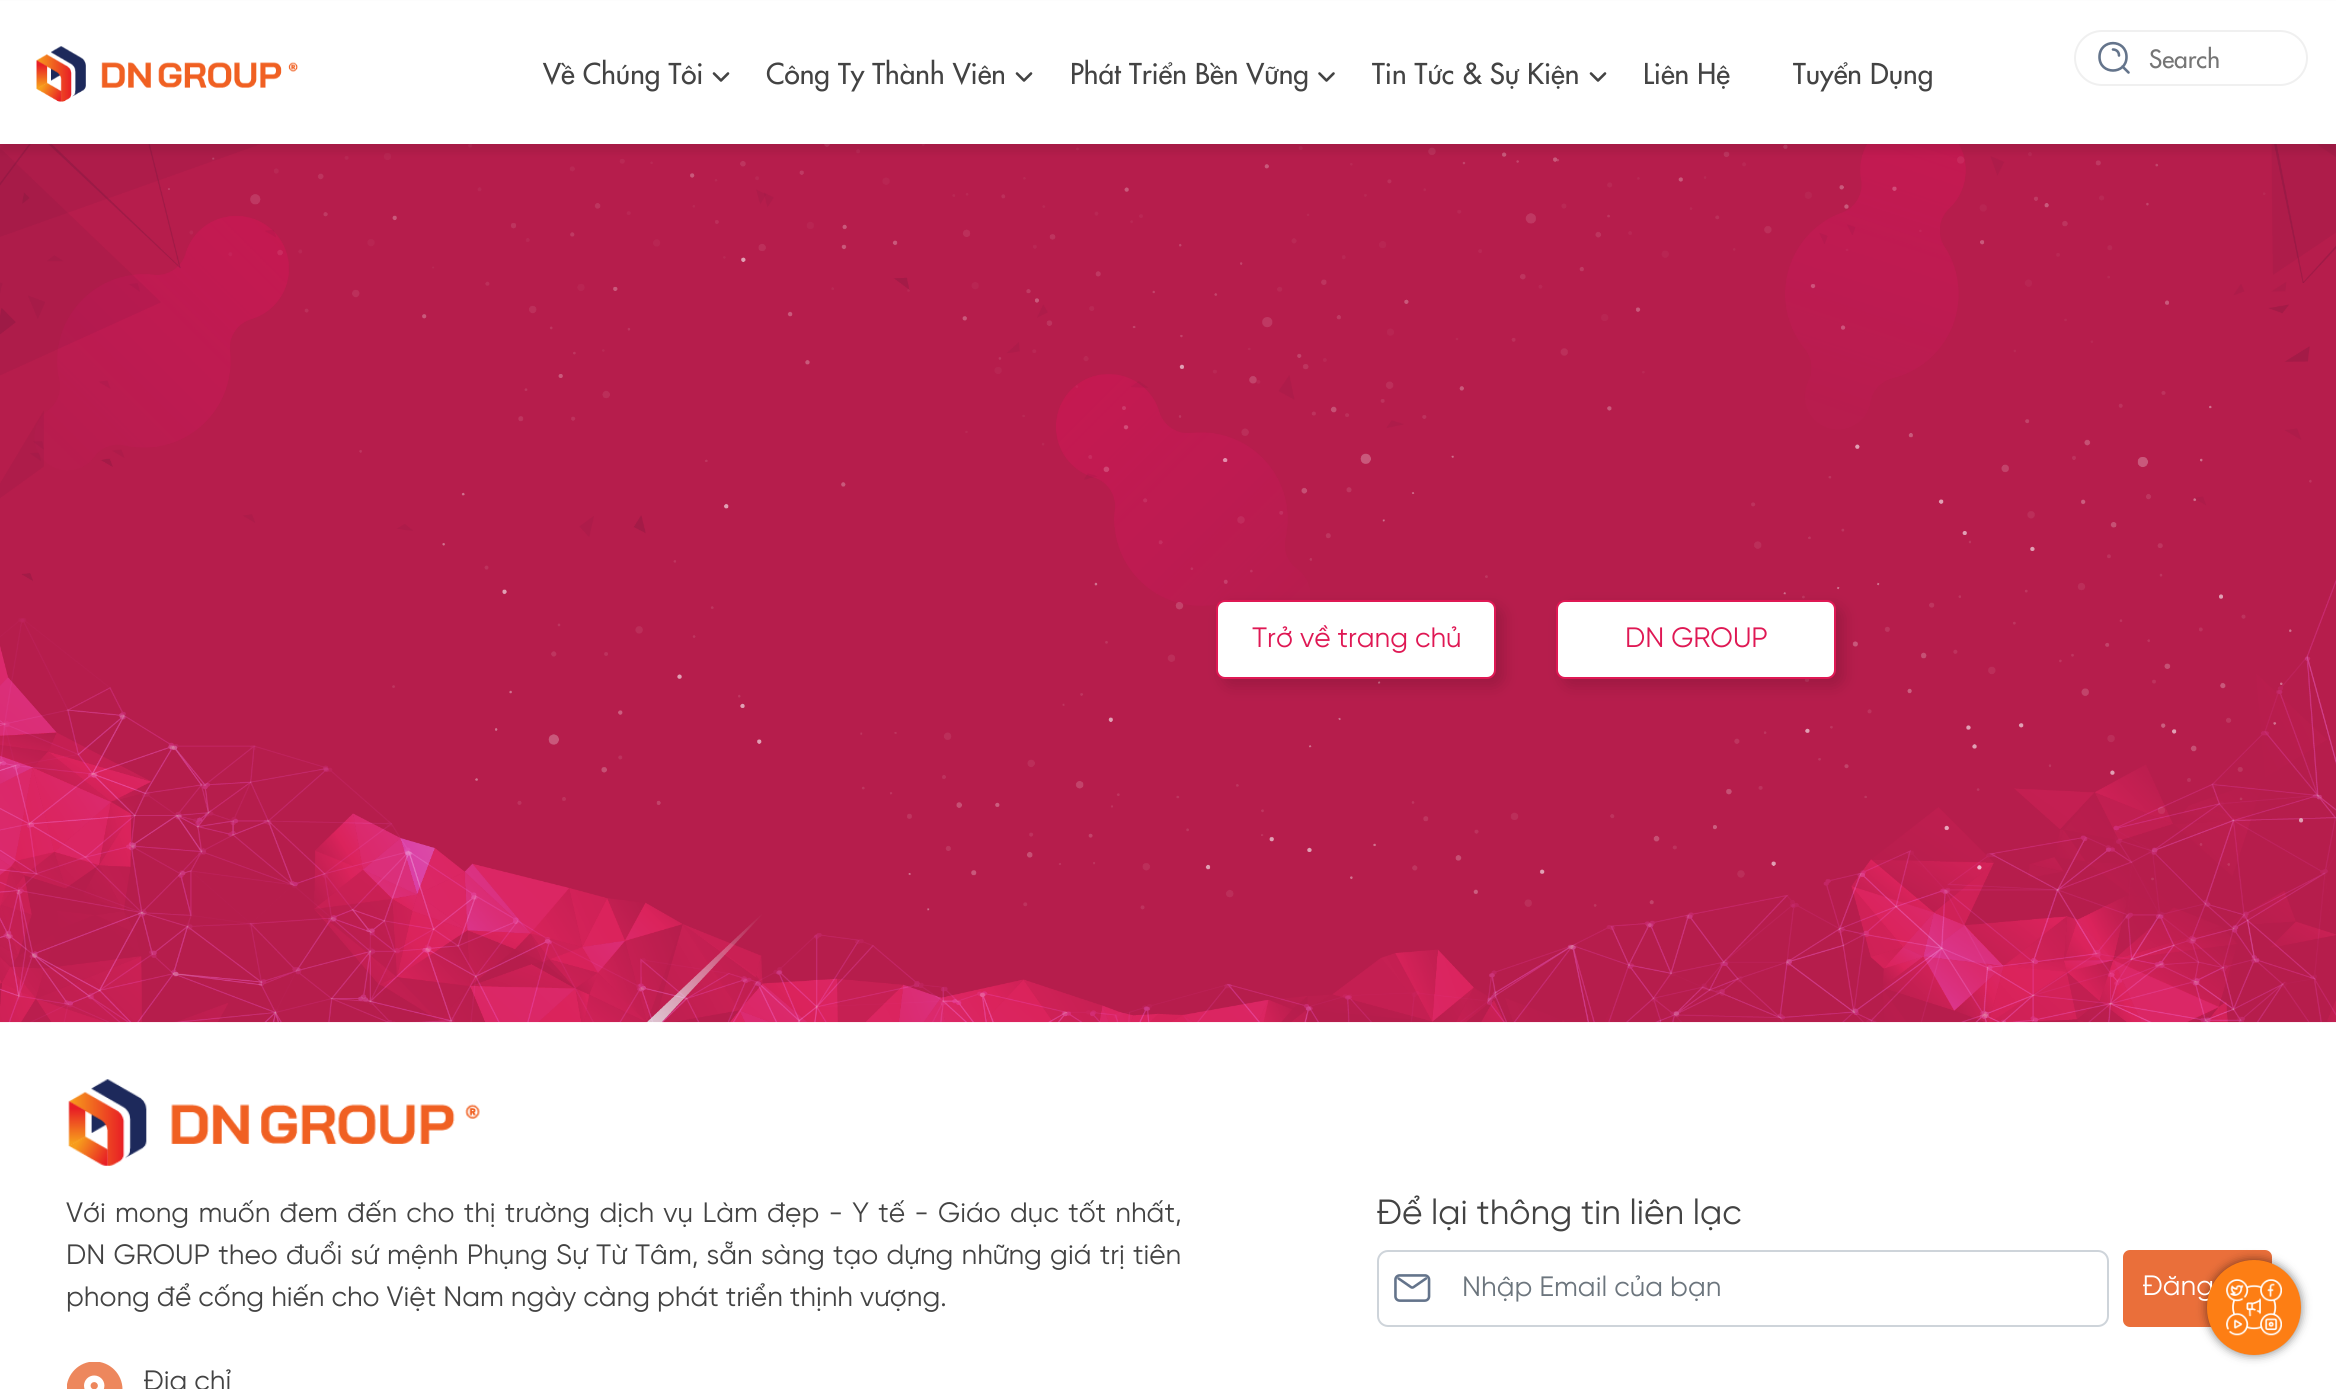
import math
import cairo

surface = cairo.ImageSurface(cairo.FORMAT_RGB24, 2336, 1389)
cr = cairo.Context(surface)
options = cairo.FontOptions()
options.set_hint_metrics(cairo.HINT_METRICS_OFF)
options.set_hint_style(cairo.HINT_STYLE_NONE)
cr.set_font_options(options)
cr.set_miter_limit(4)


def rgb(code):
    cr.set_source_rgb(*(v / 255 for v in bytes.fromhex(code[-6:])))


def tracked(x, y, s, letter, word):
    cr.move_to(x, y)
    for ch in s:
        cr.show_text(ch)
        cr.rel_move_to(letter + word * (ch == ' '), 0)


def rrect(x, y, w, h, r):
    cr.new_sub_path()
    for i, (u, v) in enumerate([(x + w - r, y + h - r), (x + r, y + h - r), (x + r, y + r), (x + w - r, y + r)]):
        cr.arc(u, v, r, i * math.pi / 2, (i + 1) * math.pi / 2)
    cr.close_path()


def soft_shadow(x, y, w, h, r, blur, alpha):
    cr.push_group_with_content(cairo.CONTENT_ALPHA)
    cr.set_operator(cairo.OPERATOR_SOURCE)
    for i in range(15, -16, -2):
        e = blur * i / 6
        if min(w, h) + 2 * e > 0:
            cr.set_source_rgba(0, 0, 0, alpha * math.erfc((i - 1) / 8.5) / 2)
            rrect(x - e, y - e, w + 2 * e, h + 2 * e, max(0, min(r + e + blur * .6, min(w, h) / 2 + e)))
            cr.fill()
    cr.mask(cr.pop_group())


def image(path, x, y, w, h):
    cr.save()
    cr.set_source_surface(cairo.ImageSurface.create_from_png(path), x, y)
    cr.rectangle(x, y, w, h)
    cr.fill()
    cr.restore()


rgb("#ffffff")
cr.paint()
image("img/2.png", 0, 144, 2336, 879)
rgb("#000000")
soft_shadow(0, 7, 2336, 144, 0, 5, 0.1)
rgb("#ffffff")
cr.rectangle(0, 1, 2336, 143)
cr.fill()
image("img/1.png", 36, 46, 262, 56)
cr.new_path()
cr.move_to(728, 73.5)
cr.line_to(721, 80.5)
cr.line_to(714, 73.5)
rgb("#434343")
cr.set_line_width(2.6)
cr.set_line_cap(cairo.LINE_CAP_ROUND)
cr.set_line_join(cairo.LINE_JOIN_ROUND)
cr.stroke()
cr.new_path()
cr.move_to(1031, 73.5)
cr.line_to(1024, 80.5)
cr.line_to(1017, 73.5)
cr.stroke()
cr.new_path()
cr.move_to(1333.5, 73.5)
cr.line_to(1326.5, 80.5)
cr.line_to(1319.5, 73.5)
cr.stroke()
cr.new_path()
cr.move_to(1605, 73.5)
cr.line_to(1598, 80.5)
cr.line_to(1591, 73.5)
cr.stroke()
rrect(2075, 31, 232, 54, 27)
rgb("#f0f0f0")
cr.set_line_width(2)
cr.set_line_cap(cairo.LINE_CAP_BUTT)
cr.set_line_join(cairo.LINE_JOIN_MITER)
cr.stroke()
cr.new_path()
cr.move_to(2122.5, 66.5)
cr.line_to(2128.5, 72.5)
cr.move_to(2113, 49.5)
cr.curve_to(2116.5, 49.5, 2119, 52, 2119, 55.5)
cr.move_to(2126.5, 57)
cr.curve_to(2126.5, 75, 2099.5, 75, 2099.5, 57)
cr.curve_to(2099.5, 38.5, 2126.5, 38.5, 2126.5, 57)
cr.close_path()
rgb("#64748b")
cr.set_line_width(2.6)
cr.set_line_cap(cairo.LINE_CAP_ROUND)
cr.stroke()
rgb("#000000")
soft_shadow(1223, 607, 280, 79, 9, 8, 0.15)
rgb("#ffffff")
rrect(1217, 601, 278, 77, 8)
cr.fill_preserve()
rgb("#df1854")
cr.set_line_width(2)
cr.set_line_cap(cairo.LINE_CAP_BUTT)
cr.stroke()
rgb("#000000")
soft_shadow(1563, 607, 280, 79, 9, 8, 0.15)
rgb("#ffffff")
rrect(1557, 601, 278, 77, 8)
cr.fill_preserve()
rgb("#df1854")
cr.stroke()
image("img/3.png", 68, 1079, 412, 87)
image("img/4.png", 67, 1362, 56, 27)
rrect(1378, 1251, 730, 75, 10)
rgb("#ced4da")
cr.stroke()
image("img/5.png", 1394, 1274, 37, 28)
rgb("#ea6f3a")
rrect(2123, 1250, 149, 77, 7)
cr.fill()
rgb("#000000")
soft_shadow(2207, 1260, 94, 95, 47, 5, 0.5)
cr.select_font_face("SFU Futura")
cr.set_font_size(28)
rgb("#434343")
for x, y, s in [
    (543, 84, "Về Chúng Tôi"),
    (766, 84, "Công Ty Thành Viên"),
    (1070, 84, "Phát Triển Bền Vững"),
    (1372, 84, "Tin Tức & Sự Kiện"),
    (1643, 84, "Liên Hệ"),
    (1793, 84, "Tuyển Dụng"),
]:
    cr.move_to(x, y)
    cr.show_text(s)
cr.set_font_size(24.5)
rgb("#757575")
cr.move_to(2149, 68)
cr.show_text("Search")
cr.select_font_face("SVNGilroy")
cr.set_font_size(28)
rgb("#df1854")
cr.move_to(1252, 647)
cr.show_text("Trở về trang chủ")
cr.move_to(1625, 647)
cr.show_text("DN GROUP")
rgb("#434343")
tracked(66, 1222, "Với mong muốn đem đến cho thị trường dịch vụ Làm đẹp - Y tế - Giáo dục tốt nhất,", 0, 2.25)
tracked(66, 1264, "DN GROUP theo đuổi sứ mệnh Phụng Sự Từ Tâm, sẵn sàng tạo dựng những giá trị tiên", 0, 1.2)
cr.move_to(66, 1306)
cr.show_text("phong để cống hiến cho Việt Nam ngày càng phát triển thịnh vượng.")
cr.move_to(143, 1390)
cr.show_text("Địa chỉ")
cr.set_font_size(35)
cr.move_to(1376, 1224)
cr.show_text("Để lại thông tin liên lạc")
cr.set_font_size(28)
rgb("#6c757d")
cr.move_to(1462, 1296)
cr.show_text("Nhập Email của bạn")
rgb("#ffffff")
cr.move_to(2142, 1295)
cr.show_text("Đăng")
rgb("#fd7e14")
rrect(2207, 1260, 94, 95, 47)
cr.fill()
image("img/6.png", 2226, 1279, 56, 57)
surface.write_to_png("page.png")
